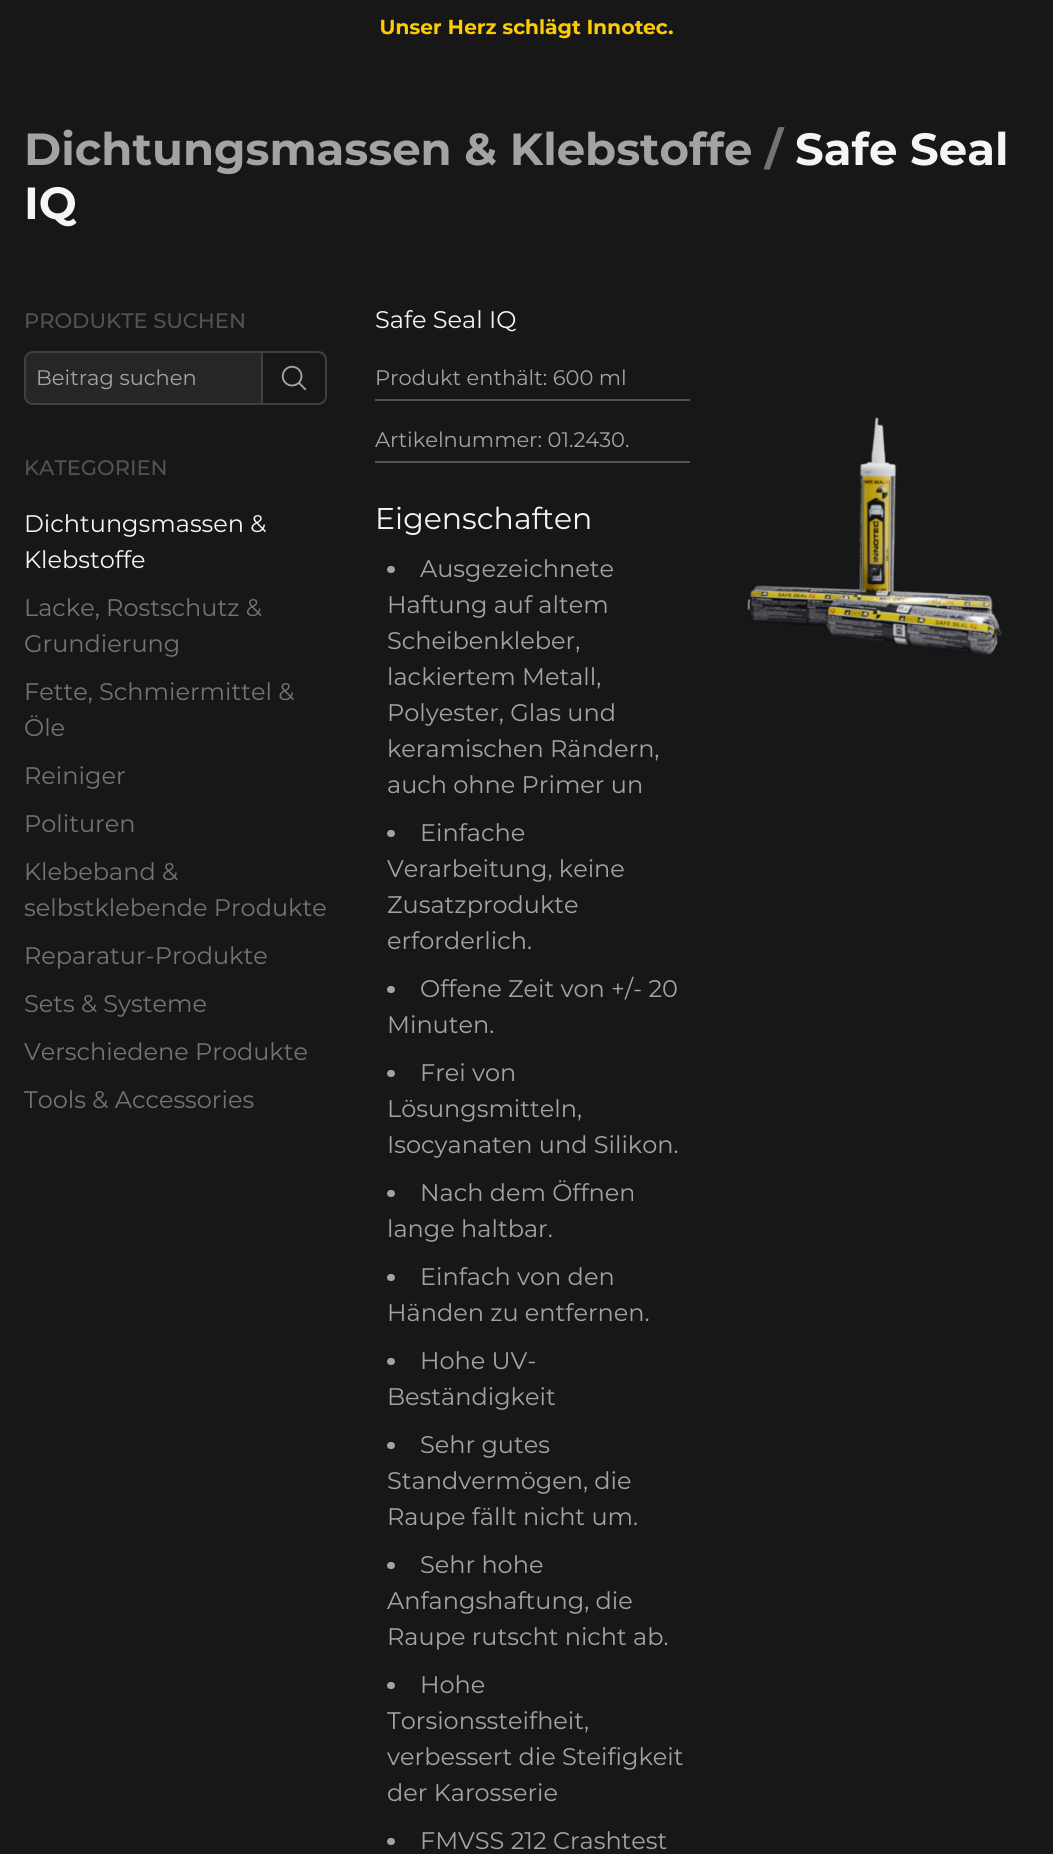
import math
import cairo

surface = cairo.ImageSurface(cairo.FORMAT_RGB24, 1053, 1854)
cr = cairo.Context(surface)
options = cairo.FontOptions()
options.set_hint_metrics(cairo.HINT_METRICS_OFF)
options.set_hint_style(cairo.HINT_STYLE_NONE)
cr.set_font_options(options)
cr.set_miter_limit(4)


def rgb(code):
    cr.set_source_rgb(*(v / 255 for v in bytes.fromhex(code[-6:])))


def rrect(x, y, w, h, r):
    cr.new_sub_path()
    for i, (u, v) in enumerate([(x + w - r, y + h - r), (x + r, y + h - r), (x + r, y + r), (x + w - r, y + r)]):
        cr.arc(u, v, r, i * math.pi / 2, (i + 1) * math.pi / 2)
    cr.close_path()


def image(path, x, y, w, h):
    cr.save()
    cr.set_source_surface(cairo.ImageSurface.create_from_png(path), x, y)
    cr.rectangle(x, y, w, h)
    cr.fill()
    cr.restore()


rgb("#171717")
cr.paint()
image("img/1.png", 380, 17, 293, 23)
rgb("#262626")
cr.new_path()
cr.move_to(33, 352)
cr.line_to(262, 352)
cr.line_to(262, 404)
cr.line_to(33, 404)
cr.curve_to(28.5, 404, 25, 400.5, 25, 396)
cr.line_to(25, 360)
cr.curve_to(25, 355.5, 28.5, 352, 33, 352)
cr.close_path()
cr.fill_preserve()
rgb("#404040")
cr.stroke()
cr.new_path()
cr.move_to(262, 352)
cr.line_to(318, 352)
cr.curve_to(322.5, 352, 326, 355.5, 326, 360)
cr.line_to(326, 396)
cr.curve_to(326, 400.5, 322.5, 404, 318, 404)
cr.line_to(262, 404)
cr.close_path()
cr.stroke()
image("img/2.png", 281, 365, 26, 26)
rgb("#525252")
cr.rectangle(375, 399, 315, 2)
cr.fill()
cr.rectangle(375, 461, 315, 2)
cr.fill()
rgb("#a3a3a3")
rrect(387, 566, 8, 7, 3.5)
cr.fill()
rrect(387, 830, 8, 7, 3.5)
cr.fill()
rrect(387, 986, 8, 7, 3.5)
cr.fill()
rrect(387, 1070, 8, 7, 3.5)
cr.fill()
rrect(387, 1190, 8, 7, 3.5)
cr.fill()
rrect(387, 1274, 8, 7, 3.5)
cr.fill()
rrect(387, 1358, 8, 7, 3.5)
cr.fill()
rrect(387, 1442, 8, 7, 3.5)
cr.fill()
rrect(387, 1562, 8, 7, 3.5)
cr.fill()
rrect(387, 1682, 8, 7, 3.5)
cr.fill()
rrect(387, 1838, 8, 7, 3.5)
cr.fill()
image("img/3.png", 747, 417, 256, 238)
cr.select_font_face("Montserrat", cairo.FONT_SLANT_NORMAL, cairo.FONT_WEIGHT_BOLD)
cr.set_font_size(45)
cr.move_to(24, 165)
cr.show_text("Dichtungsmassen & Klebstoffe")
rgb("#737373")
cr.move_to(765, 165)
cr.show_text("/")
rgb("#f5f5f5")
cr.move_to(795, 165)
cr.show_text("Safe Seal")
cr.move_to(24, 219)
cr.show_text("IQ")
cr.select_font_face("Montserrat Medium")
cr.set_font_size(21)
rgb("#525252")
cr.move_to(24, 328)
cr.show_text("PRODUKTE SUCHEN")
cr.select_font_face("Montserrat")
rgb("#a3a3a3")
cr.move_to(36, 385)
cr.show_text("Beitrag suchen")
cr.select_font_face("Montserrat Medium")
rgb("#525252")
cr.move_to(24, 475)
cr.show_text("KATEGORIEN")
cr.select_font_face("Montserrat")
cr.set_font_size(24)
rgb("#f5f5f5")
cr.move_to(24, 532)
cr.show_text("Dichtungsmassen &")
cr.move_to(24, 568)
cr.show_text("Klebstoffe")
rgb("#737373")
for x, y, s in [
    (24, 616, "Lacke, Rostschutz &"),
    (24, 652, "Grundierung"),
    (24, 700, "Fette, Schmiermittel &"),
    (24, 736, "Öle"),
    (24, 784, "Reiniger"),
    (24, 832, "Polituren"),
    (24, 880, "Klebeband &"),
    (24, 916, "selbstklebende Produkte"),
    (24, 964, "Reparatur-Produkte"),
    (24, 1012, "Sets & Systeme"),
    (24, 1060, "Verschiedene Produkte"),
    (24, 1108, "Tools & Accessories"),
]:
    cr.move_to(x, y)
    cr.show_text(s)
rgb("#f5f5f5")
cr.move_to(375, 328)
cr.show_text("Safe Seal IQ")
cr.set_font_size(21)
rgb("#a3a3a3")
cr.move_to(375, 385)
cr.show_text("Produkt enthält: 600 ml")
cr.move_to(375, 447)
cr.show_text("Artikelnummer: 01.2430.")
cr.set_font_size(30)
rgb("#f5f5f5")
cr.move_to(375, 529)
cr.show_text("Eigenschaften")
cr.set_font_size(24)
rgb("#a3a3a3")
for x, y, s in [
    (420, 577, "Ausgezeichnete"),
    (387, 613, "Haftung auf altem"),
    (387, 649, "Scheibenkleber,"),
    (387, 685, "lackiertem Metall,"),
    (387, 721, "Polyester, Glas und"),
    (387, 757, "keramischen Rändern,"),
    (387, 793, "auch ohne Primer un"),
    (420, 841, "Einfache"),
    (387, 877, "Verarbeitung, keine"),
    (387, 913, "Zusatzprodukte"),
    (387, 949, "erforderlich."),
    (420, 997, "Offene Zeit von +/- 20"),
    (387, 1033, "Minuten."),
    (420, 1081, "Frei von"),
    (387, 1117, "Lösungsmitteln,"),
    (387, 1153, "Isocyanaten und Silikon."),
    (420, 1201, "Nach dem Öffnen"),
    (387, 1237, "lange haltbar."),
    (420, 1285, "Einfach von den"),
    (387, 1321, "Händen zu entfernen."),
    (420, 1369, "Hohe UV-"),
    (387, 1405, "Beständigkeit"),
    (420, 1453, "Sehr gutes"),
    (387, 1489, "Standvermögen, die"),
    (387, 1525, "Raupe fällt nicht um."),
    (420, 1573, "Sehr hohe"),
    (387, 1609, "Anfangshaftung, die"),
    (387, 1645, "Raupe rutscht nicht ab."),
    (420, 1693, "Hohe"),
    (387, 1729, "Torsionssteifheit,"),
    (387, 1765, "verbessert die Steifigkeit"),
    (387, 1801, "der Karosserie"),
    (420, 1849, "FMVSS 212 Crashtest"),
]:
    cr.move_to(x, y)
    cr.show_text(s)
surface.write_to_png("page.png")
